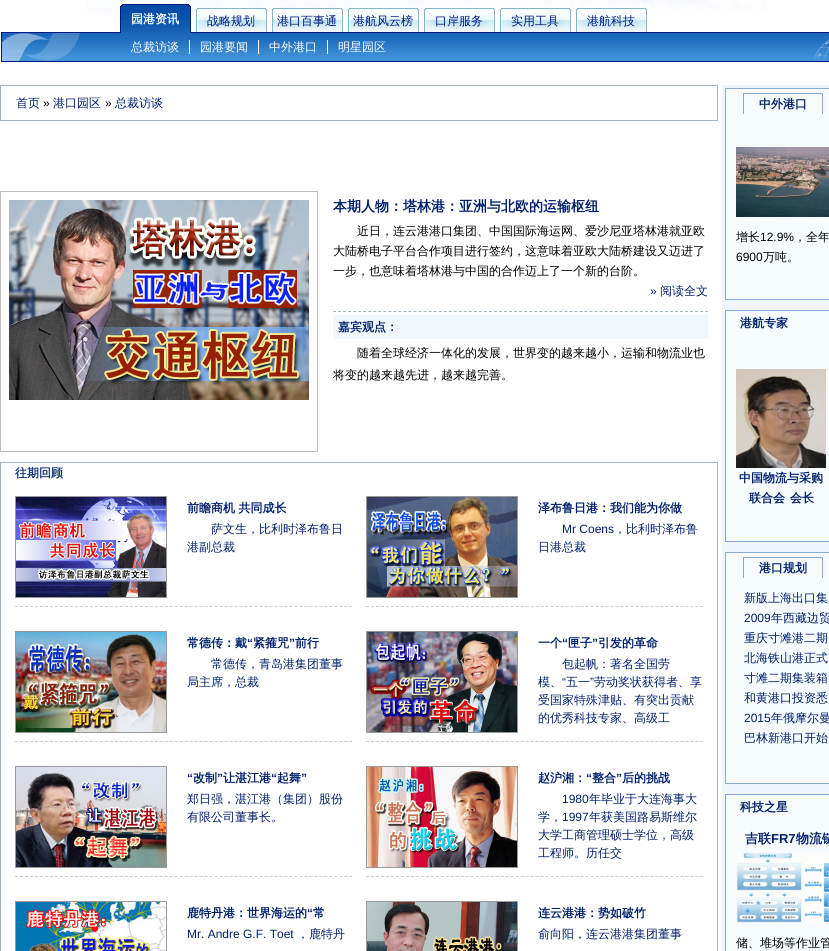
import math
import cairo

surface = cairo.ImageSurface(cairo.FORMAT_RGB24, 829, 951)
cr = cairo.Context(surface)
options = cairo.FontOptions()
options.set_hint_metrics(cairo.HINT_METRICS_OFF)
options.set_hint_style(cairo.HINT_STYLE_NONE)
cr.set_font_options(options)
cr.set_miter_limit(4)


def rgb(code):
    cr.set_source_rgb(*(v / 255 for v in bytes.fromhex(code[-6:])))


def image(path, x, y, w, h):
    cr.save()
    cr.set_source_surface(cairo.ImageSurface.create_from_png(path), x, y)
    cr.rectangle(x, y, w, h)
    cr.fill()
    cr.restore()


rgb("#ffffff")
cr.paint()
image("img/1.png", 87, 0, 680, 17)
image("img/4.png", 1, 32, 828, 30)
image("img/2.png", 120, 4, 71, 29)
image("img/3.png", 196, 8, 71, 24)
image("img/3.png", 272, 8, 71, 24)
image("img/3.png", 348, 8, 71, 24)
image("img/3.png", 424, 8, 71, 24)
image("img/3.png", 500, 8, 71, 24)
image("img/3.png", 576, 8, 71, 24)
for x, y, w, h, color in [
    (189, 40, 1, 14, "#ffffff"),
    (258, 40, 1, 14, "#ffffff"),
    (327, 40, 1, 14, "#ffffff"),
]:
    rgb(color)
    cr.rectangle(x, y, w, h)
    cr.fill()
cr.rectangle(0.5, 85.5, 717, 35)
rgb("#a4b5bf")
cr.set_line_width(1)
cr.stroke()
cr.rectangle(0.5, 191.5, 317, 260)
rgb("#bfbcbc")
cr.stroke()
image("img/5.png", 9, 200, 300, 200)
cr.new_path()
cr.move_to(333, 311.5)
cr.line_to(708, 311.5)
rgb("#a4b5bf")
cr.set_dash([3, 2.03])
cr.stroke()
rgb("#f0f8fe")
cr.rectangle(333, 315, 375, 24)
cr.fill()
cr.rectangle(0.5, 462.5, 717, 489)
rgb("#a4b5bf")
cr.set_dash([])
cr.stroke()
cr.new_path()
cr.move_to(15, 606.5)
cr.line_to(352, 606.5)
rgb("#cccccc")
cr.set_dash([3, 1.99])
cr.stroke()
cr.rectangle(15.5, 496.5, 151, 101)
rgb("#999999")
cr.set_dash([])
cr.stroke()
image("img/6.png", 16, 497, 150, 100)
cr.new_path()
cr.move_to(366, 606.5)
cr.line_to(703, 606.5)
rgb("#cccccc")
cr.set_dash([3, 1.99])
cr.stroke()
cr.rectangle(366.5, 496.5, 151, 101)
rgb("#999999")
cr.set_dash([])
cr.stroke()
image("img/7.png", 367, 497, 150, 100)
cr.new_path()
cr.move_to(15, 741.5)
cr.line_to(352, 741.5)
rgb("#cccccc")
cr.set_dash([3, 1.99])
cr.stroke()
cr.rectangle(15.5, 631.5, 151, 101)
rgb("#999999")
cr.set_dash([])
cr.stroke()
image("img/8.png", 16, 632, 150, 100)
cr.new_path()
cr.move_to(366, 741.5)
cr.line_to(703, 741.5)
rgb("#cccccc")
cr.set_dash([3, 1.99])
cr.stroke()
cr.rectangle(366.5, 631.5, 151, 101)
rgb("#999999")
cr.set_dash([])
cr.stroke()
image("img/9.png", 367, 632, 150, 100)
cr.new_path()
cr.move_to(15, 876.5)
cr.line_to(352, 876.5)
rgb("#cccccc")
cr.set_dash([3, 1.99])
cr.stroke()
cr.rectangle(15.5, 766.5, 151, 101)
rgb("#999999")
cr.set_dash([])
cr.stroke()
image("img/10.png", 16, 767, 150, 100)
cr.new_path()
cr.move_to(366, 876.5)
cr.line_to(703, 876.5)
rgb("#cccccc")
cr.set_dash([3, 1.99])
cr.stroke()
cr.rectangle(366.5, 766.5, 151, 101)
rgb("#999999")
cr.set_dash([])
cr.stroke()
image("img/11.png", 367, 767, 150, 100)
cr.rectangle(15.5, 901.5, 151, 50)
cr.stroke()
image("img/12.png", 16, 902, 150, 49)
cr.rectangle(366.5, 901.5, 151, 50)
cr.stroke()
image("img/13.png", 367, 902, 150, 49)
rgb("#eff5fc")
cr.rectangle(722, 85, 107, 866)
cr.fill()
rgb("#f6fbfd")
cr.rectangle(725.5, 88.5, 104, 211)
cr.fill_preserve()
rgb("#86aad5")
cr.stroke()
for x, y, w, h, color in [
    (743, 93, 80, 1, "#87aad4"),
    (822, 93, 1, 21, "#87aad4"),
    (743, 93, 1, 21, "#87aad4"),
]:
    rgb(color)
    cr.rectangle(x, y, w, h)
    cr.fill()
image("img/14.png", 736, 147, 93, 70)
rgb("#f6fbfd")
cr.rectangle(725.5, 310.5, 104, 231)
cr.fill_preserve()
rgb("#86aad5")
cr.stroke()
image("img/15.png", 736, 369, 90, 99)
rgb("#f6fbfd")
cr.rectangle(725.5, 552.5, 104, 231)
cr.fill_preserve()
rgb("#86aad5")
cr.stroke()
for x, y, w, h, color in [
    (743, 557, 80, 1, "#87aad4"),
    (822, 557, 1, 21, "#87aad4"),
    (743, 557, 1, 21, "#87aad4"),
]:
    rgb(color)
    cr.rectangle(x, y, w, h)
    cr.fill()
rgb("#f6fbfd")
cr.rectangle(725.5, 794.5, 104, 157)
cr.fill_preserve()
rgb("#86aad5")
cr.stroke()
image("img/16.png", 736, 853, 93, 70)
cr.select_font_face("WenQuanYi Zen Hei", cairo.FONT_SLANT_NORMAL, cairo.FONT_WEIGHT_BOLD)
cr.set_font_size(12)
rgb("#ffffff")
cr.move_to(131, 23)
cr.show_text("园港资讯")
cr.select_font_face("WenQuanYi Zen Hei Medium")
rgb("#001980")
for x, y, s in [
    (207, 25, "战略规划"),
    (277, 25, "港口百事通"),
    (353, 25, "港航风云榜"),
    (435, 25, "口岸服务"),
    (511, 25, "实用工具"),
    (587, 25, "港航科技"),
]:
    cr.move_to(x, y)
    cr.show_text(s)
rgb("#ffffff")
for x, y, s in [
    (131, 51, "总裁访谈"),
    (200, 51, "园港要闻"),
    (269, 51, "中外港口"),
    (338, 51, "明星园区"),
]:
    cr.move_to(x, y)
    cr.show_text(s)
rgb("#001f6c")
cr.move_to(16, 107)
cr.show_text("首页")
cr.select_font_face("Liberation Sans")
rgb("#000000")
cr.move_to(43, 107)
cr.show_text("»")
cr.select_font_face("WenQuanYi Zen Hei Medium")
rgb("#001f6c")
cr.move_to(53, 107)
cr.show_text("港口园区")
cr.select_font_face("Liberation Sans")
rgb("#000000")
cr.move_to(105, 107)
cr.show_text("»")
cr.select_font_face("WenQuanYi Zen Hei Medium")
rgb("#001f6c")
cr.move_to(115, 107)
cr.show_text("总裁访谈")
cr.select_font_face("WenQuanYi Zen Hei", cairo.FONT_SLANT_NORMAL, cairo.FONT_WEIGHT_BOLD)
cr.set_font_size(14)
cr.move_to(333, 211)
cr.show_text("本期人物：塔林港：亚洲与北欧的运输枢纽")
cr.select_font_face("WenQuanYi Zen Hei Medium")
cr.set_font_size(12)
rgb("#000000")
for x, y, s in [
    (357, 235, "近日，连云港港口集团、中国国际海运网、爱沙尼亚塔林港就亚欧"),
    (333, 255, "大陆桥电子平台合作项目进行签约，这意味着亚欧大陆桥建设又迈进了"),
    (333, 275, "一步，也意味着塔林港与中国的合作迈上了一个新的台阶。"),
]:
    cr.move_to(x, y)
    cr.show_text(s)
cr.select_font_face("Liberation Sans")
rgb("#001f6c")
cr.move_to(650, 295)
cr.show_text("»")
cr.select_font_face("WenQuanYi Zen Hei Medium")
cr.move_to(660, 295)
cr.show_text("阅读全文")
cr.select_font_face("WenQuanYi Zen Hei", cairo.FONT_SLANT_NORMAL, cairo.FONT_WEIGHT_BOLD)
cr.move_to(338, 331)
cr.show_text("嘉宾观点：")
cr.select_font_face("WenQuanYi Zen Hei Medium")
rgb("#000000")
cr.move_to(357, 357)
cr.show_text("随着全球经济一体化的发展，世界变的越来越小，运输和物流业也")
cr.move_to(333, 379)
cr.show_text("将变的越来越先进，越来越完善。")
cr.select_font_face("WenQuanYi Zen Hei", cairo.FONT_SLANT_NORMAL, cairo.FONT_WEIGHT_BOLD)
rgb("#16387c")
cr.move_to(15, 477)
cr.show_text("往期回顾")
rgb("#001f6c")
cr.move_to(187, 512)
cr.show_text("前瞻商机 共同成长")
cr.select_font_face("WenQuanYi Zen Hei Medium")
cr.move_to(211, 533)
cr.show_text("萨文生，比利时泽布鲁日")
cr.move_to(187, 551)
cr.show_text("港副总裁")
cr.select_font_face("WenQuanYi Zen Hei", cairo.FONT_SLANT_NORMAL, cairo.FONT_WEIGHT_BOLD)
cr.move_to(538, 512)
cr.show_text("泽布鲁日港：我们能为你做")
cr.select_font_face("Liberation Sans")
cr.move_to(562, 533)
cr.show_text("Mr Coens")
cr.select_font_face("WenQuanYi Zen Hei Medium")
cr.move_to(614, 533)
cr.show_text("，比利时泽布鲁")
cr.move_to(538, 551)
cr.show_text("日港总裁")
cr.select_font_face("WenQuanYi Zen Hei", cairo.FONT_SLANT_NORMAL, cairo.FONT_WEIGHT_BOLD)
cr.move_to(187, 647)
cr.show_text("常德传：戴")
cr.select_font_face("Liberation Sans", cairo.FONT_SLANT_NORMAL, cairo.FONT_WEIGHT_BOLD)
cr.move_to(247, 647)
cr.show_text("“")
cr.select_font_face("WenQuanYi Zen Hei", cairo.FONT_SLANT_NORMAL, cairo.FONT_WEIGHT_BOLD)
cr.move_to(253, 647)
cr.show_text("紧箍咒")
cr.select_font_face("Liberation Sans", cairo.FONT_SLANT_NORMAL, cairo.FONT_WEIGHT_BOLD)
cr.move_to(289, 647)
cr.show_text("”")
cr.select_font_face("WenQuanYi Zen Hei", cairo.FONT_SLANT_NORMAL, cairo.FONT_WEIGHT_BOLD)
cr.move_to(295, 647)
cr.show_text("前行")
cr.select_font_face("WenQuanYi Zen Hei Medium")
cr.move_to(211, 668)
cr.show_text("常德传，青岛港集团董事")
cr.move_to(187, 686)
cr.show_text("局主席，总裁")
cr.select_font_face("WenQuanYi Zen Hei", cairo.FONT_SLANT_NORMAL, cairo.FONT_WEIGHT_BOLD)
cr.move_to(538, 647)
cr.show_text("一个")
cr.select_font_face("Liberation Sans", cairo.FONT_SLANT_NORMAL, cairo.FONT_WEIGHT_BOLD)
cr.move_to(562, 647)
cr.show_text("“")
cr.select_font_face("WenQuanYi Zen Hei", cairo.FONT_SLANT_NORMAL, cairo.FONT_WEIGHT_BOLD)
cr.move_to(568, 647)
cr.show_text("匣子")
cr.select_font_face("Liberation Sans", cairo.FONT_SLANT_NORMAL, cairo.FONT_WEIGHT_BOLD)
cr.move_to(592, 647)
cr.show_text("”")
cr.select_font_face("WenQuanYi Zen Hei", cairo.FONT_SLANT_NORMAL, cairo.FONT_WEIGHT_BOLD)
cr.move_to(598, 647)
cr.show_text("引发的革命")
cr.select_font_face("WenQuanYi Zen Hei Medium")
cr.move_to(562, 668)
cr.show_text("包起帆：著名全国劳")
cr.move_to(538, 686)
cr.show_text("模、")
cr.select_font_face("Liberation Sans")
cr.move_to(562, 686)
cr.show_text("“")
cr.select_font_face("WenQuanYi Zen Hei Medium")
cr.move_to(566, 686)
cr.show_text("五一")
cr.select_font_face("Liberation Sans")
cr.move_to(590, 686)
cr.show_text("”")
cr.select_font_face("WenQuanYi Zen Hei Medium")
for x, y, s in [
    (594, 686, "劳动奖状获得者、享"),
    (538, 704, "受国家特殊津贴、有突出贡献"),
    (538, 722, "的优秀科技专家、高级工"),
]:
    cr.move_to(x, y)
    cr.show_text(s)
cr.select_font_face("Liberation Sans", cairo.FONT_SLANT_NORMAL, cairo.FONT_WEIGHT_BOLD)
cr.move_to(187, 782)
cr.show_text("“")
cr.select_font_face("WenQuanYi Zen Hei", cairo.FONT_SLANT_NORMAL, cairo.FONT_WEIGHT_BOLD)
cr.move_to(193, 782)
cr.show_text("改制")
cr.select_font_face("Liberation Sans", cairo.FONT_SLANT_NORMAL, cairo.FONT_WEIGHT_BOLD)
cr.move_to(217, 782)
cr.show_text("”")
cr.select_font_face("WenQuanYi Zen Hei", cairo.FONT_SLANT_NORMAL, cairo.FONT_WEIGHT_BOLD)
cr.move_to(223, 782)
cr.show_text("让湛江港")
cr.select_font_face("Liberation Sans", cairo.FONT_SLANT_NORMAL, cairo.FONT_WEIGHT_BOLD)
cr.move_to(271, 782)
cr.show_text("“")
cr.select_font_face("WenQuanYi Zen Hei", cairo.FONT_SLANT_NORMAL, cairo.FONT_WEIGHT_BOLD)
cr.move_to(277, 782)
cr.show_text("起舞")
cr.select_font_face("Liberation Sans", cairo.FONT_SLANT_NORMAL, cairo.FONT_WEIGHT_BOLD)
cr.move_to(301, 782)
cr.show_text("”")
cr.select_font_face("WenQuanYi Zen Hei Medium")
cr.move_to(187, 803)
cr.show_text("郑日强，湛江港（集团）股份")
cr.move_to(187, 821)
cr.show_text("有限公司董事长。")
cr.select_font_face("WenQuanYi Zen Hei", cairo.FONT_SLANT_NORMAL, cairo.FONT_WEIGHT_BOLD)
cr.move_to(538, 782)
cr.show_text("赵沪湘：")
cr.select_font_face("Liberation Sans", cairo.FONT_SLANT_NORMAL, cairo.FONT_WEIGHT_BOLD)
cr.move_to(586, 782)
cr.show_text("“")
cr.select_font_face("WenQuanYi Zen Hei", cairo.FONT_SLANT_NORMAL, cairo.FONT_WEIGHT_BOLD)
cr.move_to(592, 782)
cr.show_text("整合")
cr.select_font_face("Liberation Sans", cairo.FONT_SLANT_NORMAL, cairo.FONT_WEIGHT_BOLD)
cr.move_to(616, 782)
cr.show_text("”")
cr.select_font_face("WenQuanYi Zen Hei", cairo.FONT_SLANT_NORMAL, cairo.FONT_WEIGHT_BOLD)
cr.move_to(622, 782)
cr.show_text("后的挑战")
cr.select_font_face("Liberation Sans")
cr.move_to(562, 803)
cr.show_text("1980")
cr.select_font_face("WenQuanYi Zen Hei Medium")
cr.move_to(589, 803)
cr.show_text("年毕业于大连海事大")
cr.move_to(538, 821)
cr.show_text("学，")
cr.select_font_face("Liberation Sans")
cr.move_to(562, 821)
cr.show_text("1997")
cr.select_font_face("WenQuanYi Zen Hei Medium")
for x, y, s in [
    (589, 821, "年获美国路易斯维尔"),
    (538, 839, "大学工商管理硕士学位，高级"),
    (538, 857, "工程师。历任交"),
]:
    cr.move_to(x, y)
    cr.show_text(s)
cr.select_font_face("WenQuanYi Zen Hei", cairo.FONT_SLANT_NORMAL, cairo.FONT_WEIGHT_BOLD)
cr.move_to(187, 917)
cr.show_text("鹿特丹港：世界海运的")
cr.select_font_face("Liberation Sans", cairo.FONT_SLANT_NORMAL, cairo.FONT_WEIGHT_BOLD)
cr.move_to(307, 917)
cr.show_text("“")
cr.select_font_face("WenQuanYi Zen Hei", cairo.FONT_SLANT_NORMAL, cairo.FONT_WEIGHT_BOLD)
cr.move_to(313, 917)
cr.show_text("常")
cr.select_font_face("Liberation Sans")
cr.move_to(187, 938)
cr.show_text("Mr. Andre G.F. Toet")
cr.select_font_face("WenQuanYi Zen Hei Medium")
cr.move_to(297, 938)
cr.show_text("，鹿特丹")
cr.select_font_face("WenQuanYi Zen Hei", cairo.FONT_SLANT_NORMAL, cairo.FONT_WEIGHT_BOLD)
cr.move_to(538, 917)
cr.show_text("连云港港：势如破竹")
cr.select_font_face("WenQuanYi Zen Hei Medium")
cr.move_to(538, 938)
cr.show_text("俞向阳，连云港港集团董事")
cr.select_font_face("WenQuanYi Zen Hei", cairo.FONT_SLANT_NORMAL, cairo.FONT_WEIGHT_BOLD)
cr.move_to(759, 108)
cr.show_text("中外港口")
cr.select_font_face("WenQuanYi Zen Hei Medium")
rgb("#000000")
cr.move_to(736, 241)
cr.show_text("增长")
cr.select_font_face("Liberation Sans")
cr.move_to(760, 241)
cr.show_text("12.9%")
cr.select_font_face("WenQuanYi Zen Hei Medium")
cr.move_to(794, 241)
cr.show_text("，全年")
cr.select_font_face("Liberation Sans")
cr.move_to(736, 261)
cr.show_text("6900")
cr.select_font_face("WenQuanYi Zen Hei Medium")
cr.move_to(763, 261)
cr.show_text("万吨。")
cr.select_font_face("WenQuanYi Zen Hei", cairo.FONT_SLANT_NORMAL, cairo.FONT_WEIGHT_BOLD)
rgb("#001f6c")
for x, y, s in [
    (740, 327, "港航专家"),
    (739, 482, "中国物流与采购"),
    (749, 502, "联合会"),
    (790, 502, "会长"),
    (759, 572, "港口规划"),
]:
    cr.move_to(x, y)
    cr.show_text(s)
cr.select_font_face("WenQuanYi Zen Hei Medium")
cr.move_to(744, 602)
cr.show_text("新版上海出口集")
cr.select_font_face("Liberation Sans")
cr.move_to(744, 622)
cr.show_text("2009")
cr.select_font_face("WenQuanYi Zen Hei Medium")
for x, y, s in [
    (771, 622, "年西藏边贸"),
    (744, 642, "重庆寸滩港二期"),
    (744, 662, "北海铁山港正式"),
    (744, 682, "寸滩二期集装箱"),
    (744, 702, "和黄港口投资悉"),
]:
    cr.move_to(x, y)
    cr.show_text(s)
cr.select_font_face("Liberation Sans")
cr.move_to(744, 722)
cr.show_text("2015")
cr.select_font_face("WenQuanYi Zen Hei Medium")
cr.move_to(771, 722)
cr.show_text("年俄摩尔曼")
cr.move_to(744, 742)
cr.show_text("巴林新港口开始")
cr.select_font_face("WenQuanYi Zen Hei", cairo.FONT_SLANT_NORMAL, cairo.FONT_WEIGHT_BOLD)
cr.move_to(740, 811)
cr.show_text("科技之星")
cr.set_font_size(13)
cr.move_to(745, 843)
cr.show_text("吉联")
cr.select_font_face("Liberation Sans", cairo.FONT_SLANT_NORMAL, cairo.FONT_WEIGHT_BOLD)
cr.move_to(771, 843)
cr.show_text("FR7")
cr.select_font_face("WenQuanYi Zen Hei", cairo.FONT_SLANT_NORMAL, cairo.FONT_WEIGHT_BOLD)
cr.move_to(796, 843)
cr.show_text("物流链")
cr.select_font_face("WenQuanYi Zen Hei Medium")
cr.set_font_size(12)
rgb("#000000")
cr.move_to(736, 947)
cr.show_text("储、堆场等作业管")
surface.write_to_png("page.png")
